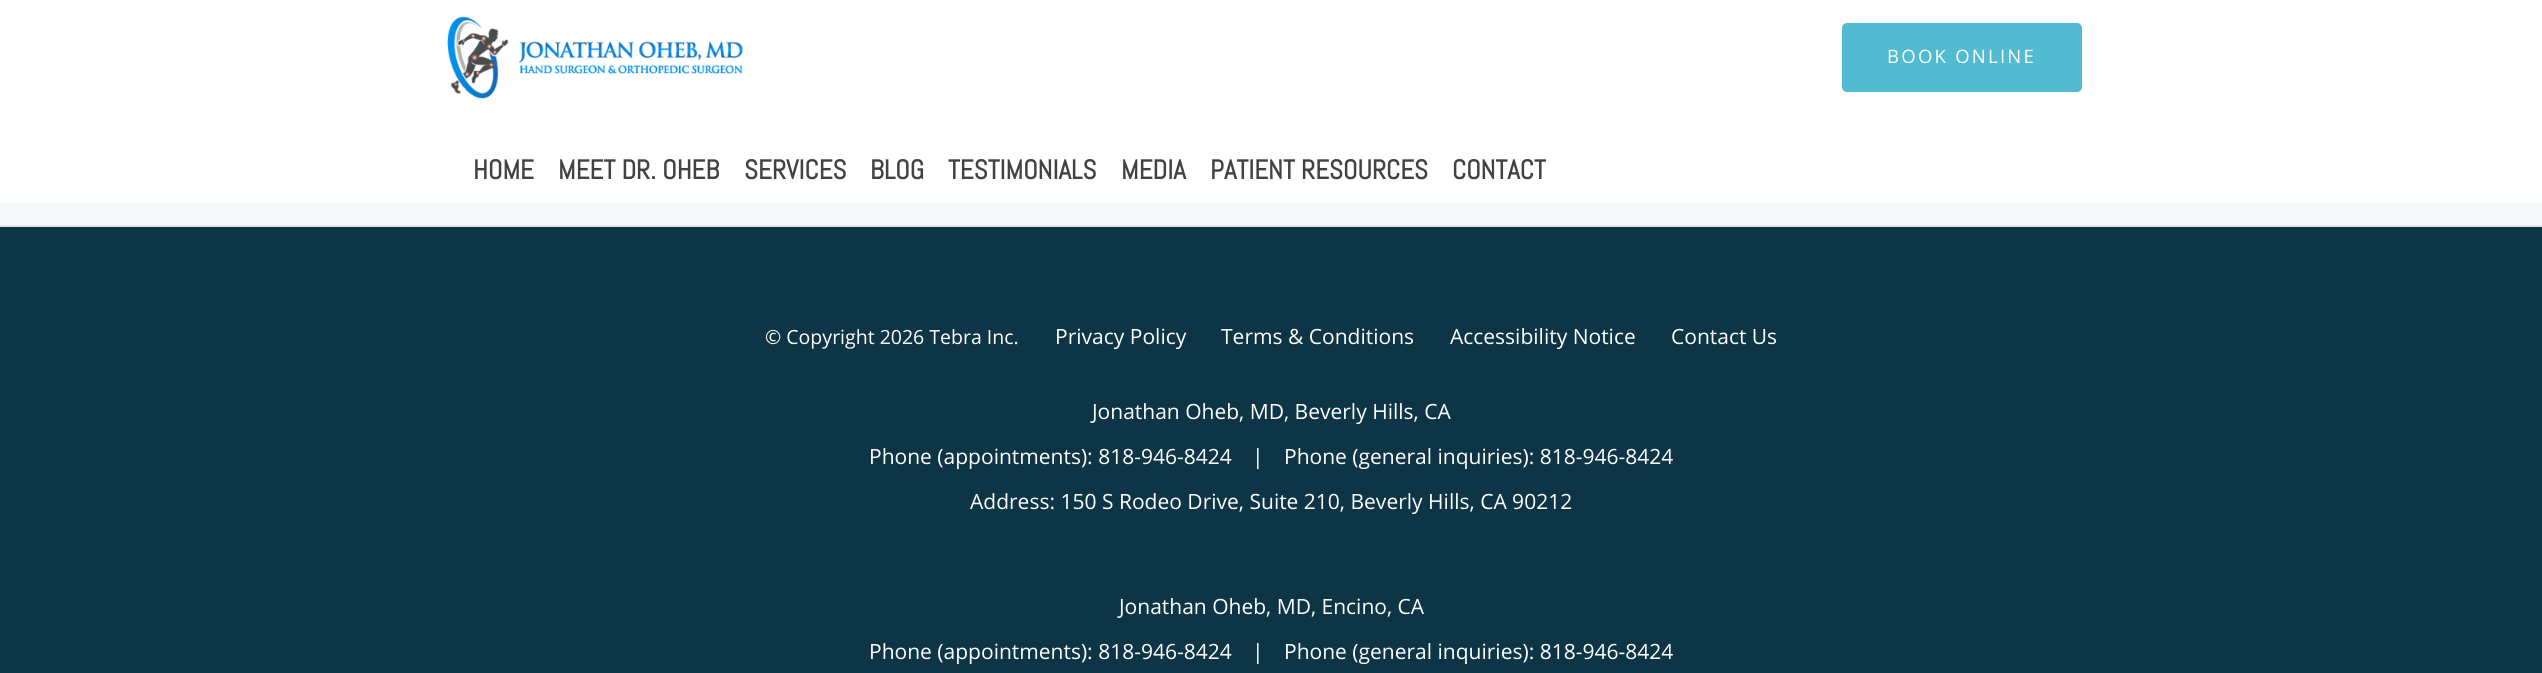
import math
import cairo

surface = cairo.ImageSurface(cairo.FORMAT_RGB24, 2542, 673)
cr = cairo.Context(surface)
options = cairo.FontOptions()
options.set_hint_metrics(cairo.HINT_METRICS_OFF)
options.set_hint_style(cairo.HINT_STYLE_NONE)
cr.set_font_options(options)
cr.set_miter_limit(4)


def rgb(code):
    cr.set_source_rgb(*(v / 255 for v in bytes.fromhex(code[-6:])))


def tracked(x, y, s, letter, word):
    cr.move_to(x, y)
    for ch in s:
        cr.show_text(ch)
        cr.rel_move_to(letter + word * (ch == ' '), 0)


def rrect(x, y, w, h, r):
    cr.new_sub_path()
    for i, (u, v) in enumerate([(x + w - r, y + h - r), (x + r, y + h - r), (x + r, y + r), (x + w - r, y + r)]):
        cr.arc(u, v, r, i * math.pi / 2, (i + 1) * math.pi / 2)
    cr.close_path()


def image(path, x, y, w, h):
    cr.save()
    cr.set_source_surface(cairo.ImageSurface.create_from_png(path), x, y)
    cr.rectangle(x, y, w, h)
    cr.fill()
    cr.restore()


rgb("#f5f9f9")
cr.paint()
rgb("#ffffff")
cr.rectangle(0, 0, 2542, 203)
cr.fill()
image("img/1.png", 447, 16, 296, 83)
rgb("#52bad1")
rrect(1843, 24, 238, 67, 4)
cr.fill_preserve()
cr.stroke()
rgb("#dfe5e8")
cr.rectangle(0, 225, 2542, 2)
cr.fill()
rgb("#0d3545")
cr.rectangle(0, 227, 2542, 446)
cr.fill()
cr.select_font_face("Open Sans")
cr.set_font_size(18.5)
rgb("#ffffff")
tracked(1887, 63, "BOOK ONLINE", 2.25, 0)
cr.select_font_face("Abel", cairo.FONT_SLANT_NORMAL, cairo.FONT_WEIGHT_BOLD)
cr.set_font_size(27)
rgb("#424242")
for x, y, s in [
    (473, 179, "HOME"),
    (558, 179, "MEET DR. OHEB"),
    (744, 179, "SERVICES"),
    (870, 179, "BLOG"),
    (948, 179, "TESTIMONIALS"),
    (1121, 179, "MEDIA"),
    (1210, 179, "PATIENT RESOURCES"),
    (1452, 179, "CONTACT"),
]:
    cr.move_to(x, y)
    cr.show_text(s)
cr.select_font_face("Open Sans")
cr.set_font_size(19.5)
rgb("#ffffff")
cr.move_to(765, 344)
cr.show_text("© Copyright 2026 Tebra Inc.")
cr.set_font_size(21)
for x, y, s in [
    (1055, 344, "Privacy Policy"),
    (1221, 344, "Terms & Conditions"),
    (1450, 344, "Accessibility Notice"),
    (1671, 344, "Contact Us"),
    (1092, 419, "Jonathan Oheb, MD, Beverly Hills, CA"),
    (869, 464, "Phone (appointments): 818-946-8424"),
    (1252, 464, "|"),
    (1284, 464, "Phone (general inquiries): 818-946-8424"),
    (970, 509, "Address: 150 S Rodeo Drive, Suite 210, Beverly Hills, CA 90212"),
    (1119, 614, "Jonathan Oheb, MD, Encino, CA"),
    (869, 659, "Phone (appointments): 818-946-8424"),
    (1252, 659, "|"),
    (1284, 659, "Phone (general inquiries): 818-946-8424"),
]:
    cr.move_to(x, y)
    cr.show_text(s)
surface.write_to_png("page.png")
